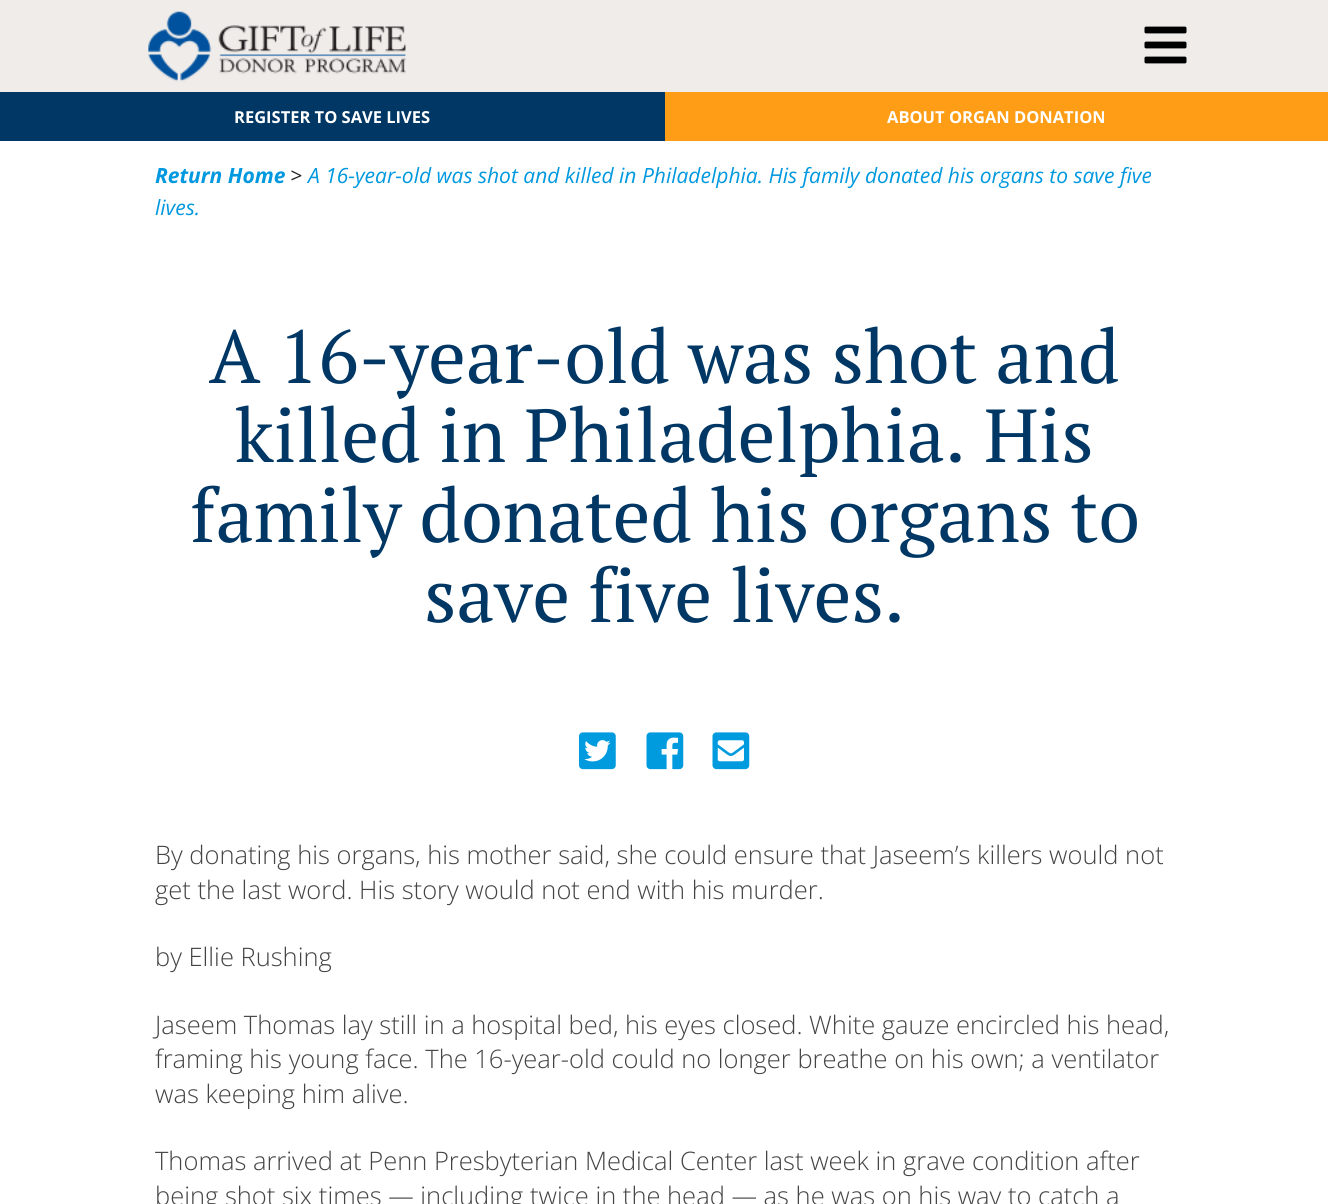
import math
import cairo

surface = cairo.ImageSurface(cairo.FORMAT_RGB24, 1328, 1204)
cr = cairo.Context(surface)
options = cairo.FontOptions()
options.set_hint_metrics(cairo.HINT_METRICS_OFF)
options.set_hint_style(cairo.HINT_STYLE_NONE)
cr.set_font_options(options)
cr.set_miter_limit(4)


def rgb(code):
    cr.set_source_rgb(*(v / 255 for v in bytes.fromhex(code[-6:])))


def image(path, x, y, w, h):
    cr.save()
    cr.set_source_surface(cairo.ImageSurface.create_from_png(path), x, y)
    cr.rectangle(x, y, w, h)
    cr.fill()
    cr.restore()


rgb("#ffffff")
cr.paint()
rgb("#f0ece9")
cr.rectangle(0, 0, 1328, 92)
cr.fill()
image("img/1.png", 148, 11, 259, 71)
image("img/2.png", 1144, 26, 43, 38)
rgb("#003764")
cr.rectangle(0, 92, 665, 49)
cr.fill()
rgb("#ff9e16")
cr.rectangle(665, 92, 663, 49)
cr.fill()
image("img/3.png", 579, 732, 37, 38)
image("img/4.png", 646, 732, 38, 38)
image("img/5.png", 712, 732, 38, 38)
cr.select_font_face("Open Sans", cairo.FONT_SLANT_NORMAL, cairo.FONT_WEIGHT_BOLD)
cr.set_font_size(16.5)
rgb("#ffffff")
cr.move_to(234, 123)
cr.show_text("REGISTER TO SAVE LIVES")
cr.move_to(887, 123)
cr.show_text("ABOUT ORGAN DONATION")
cr.select_font_face("Open Sans", cairo.FONT_SLANT_ITALIC, cairo.FONT_WEIGHT_BOLD)
cr.set_font_size(21)
rgb("#0098de")
cr.move_to(155, 183)
cr.show_text("Return Home")
cr.select_font_face("Open Sans", cairo.FONT_SLANT_ITALIC)
rgb("#212529")
cr.move_to(290, 183)
cr.show_text(">")
rgb("#0098de")
cr.move_to(308, 183)
cr.show_text("A 16-year-old was shot and killed in Philadelphia. His family donated his organs to save five")
cr.move_to(155, 215)
cr.show_text("lives.")
cr.select_font_face("PT Serif")
cr.set_font_size(75)
rgb("#003764")
for x, y, s in [
    (209, 383, "A 16-year-old was shot and"),
    (235, 462, "killed in Philadelphia. His"),
    (190, 542, "family donated his organs to"),
    (424, 622, "save five lives."),
]:
    cr.move_to(x, y)
    cr.show_text(s)
cr.select_font_face("Open Sans Light")
cr.set_font_size(25.5)
rgb("#444444")
for x, y, s in [
    (155, 864, "By donating his organs, his mother said, she could ensure that Jaseem’s killers would not"),
    (155, 899, "get the last word. His story would not end with his murder."),
    (155, 966, "by Ellie Rushing"),
    (155, 1034, "Jaseem Thomas lay still in a hospital bed, his eyes closed. White gauze encircled his head,"),
    (155, 1068, "framing his young face. The 16-year-old could no longer breathe on his own; a ventilator"),
    (155, 1103, "was keeping him alive."),
    (155, 1170, "Thomas arrived at Penn Presbyterian Medical Center last week in grave condition after"),
    (155, 1205, "being shot six times — including twice in the head — as he was on his way to catch a"),
]:
    cr.move_to(x, y)
    cr.show_text(s)
surface.write_to_png("page.png")
